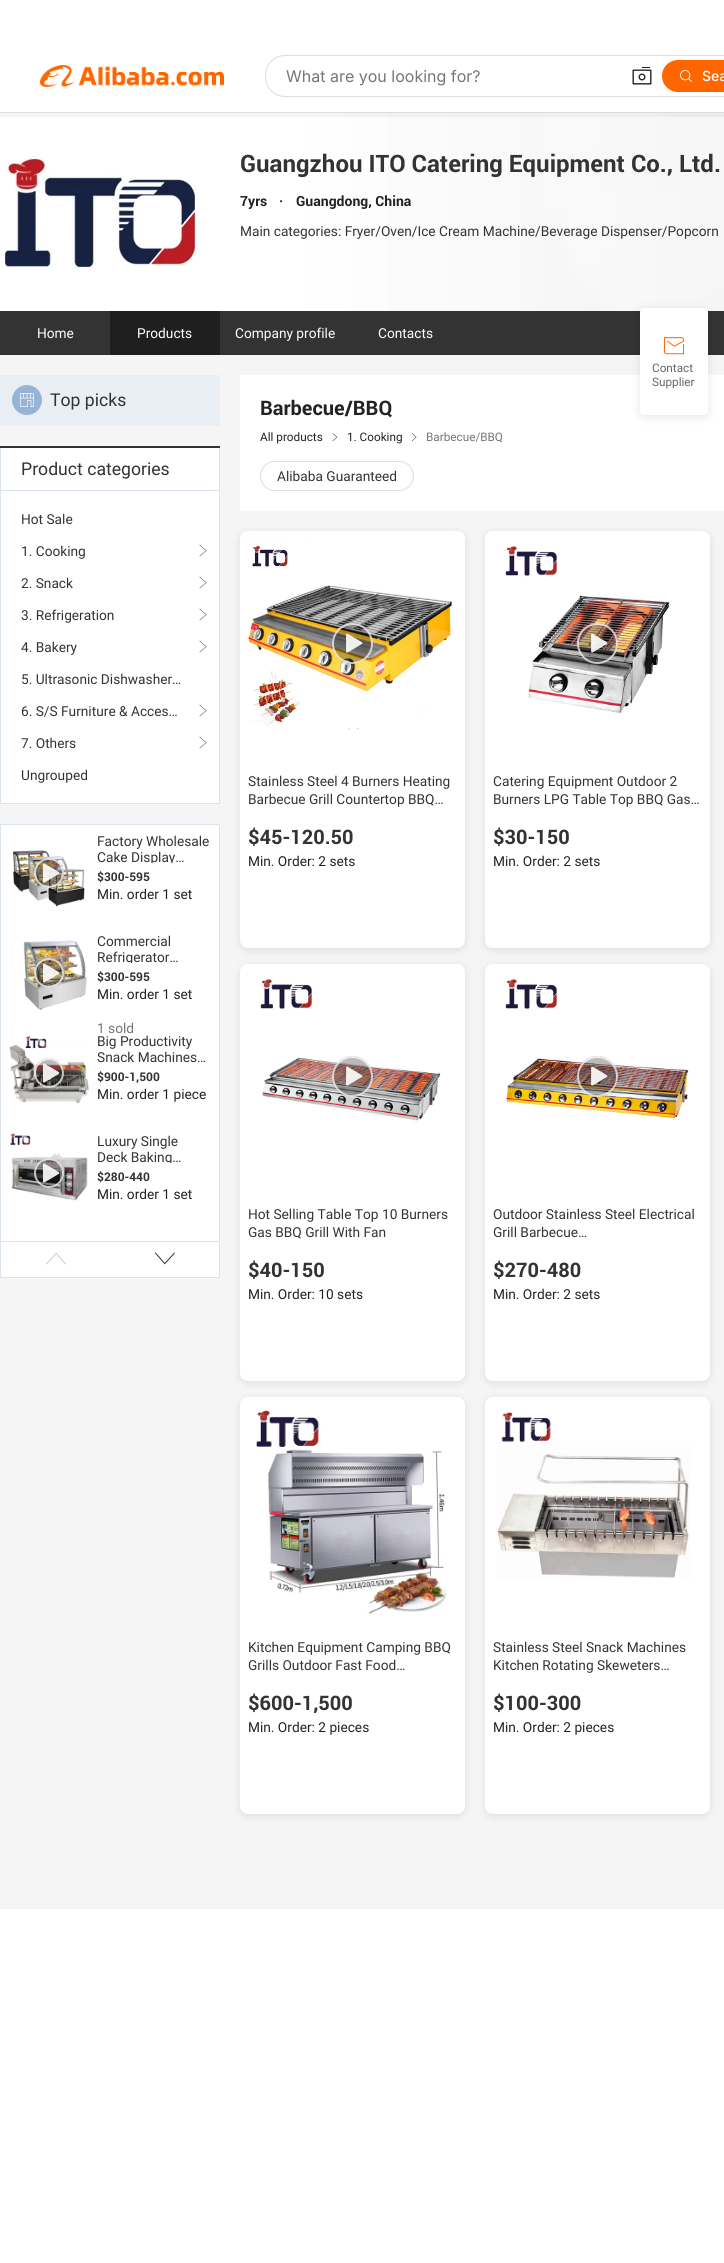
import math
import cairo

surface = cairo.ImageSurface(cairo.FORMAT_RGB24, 724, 2263)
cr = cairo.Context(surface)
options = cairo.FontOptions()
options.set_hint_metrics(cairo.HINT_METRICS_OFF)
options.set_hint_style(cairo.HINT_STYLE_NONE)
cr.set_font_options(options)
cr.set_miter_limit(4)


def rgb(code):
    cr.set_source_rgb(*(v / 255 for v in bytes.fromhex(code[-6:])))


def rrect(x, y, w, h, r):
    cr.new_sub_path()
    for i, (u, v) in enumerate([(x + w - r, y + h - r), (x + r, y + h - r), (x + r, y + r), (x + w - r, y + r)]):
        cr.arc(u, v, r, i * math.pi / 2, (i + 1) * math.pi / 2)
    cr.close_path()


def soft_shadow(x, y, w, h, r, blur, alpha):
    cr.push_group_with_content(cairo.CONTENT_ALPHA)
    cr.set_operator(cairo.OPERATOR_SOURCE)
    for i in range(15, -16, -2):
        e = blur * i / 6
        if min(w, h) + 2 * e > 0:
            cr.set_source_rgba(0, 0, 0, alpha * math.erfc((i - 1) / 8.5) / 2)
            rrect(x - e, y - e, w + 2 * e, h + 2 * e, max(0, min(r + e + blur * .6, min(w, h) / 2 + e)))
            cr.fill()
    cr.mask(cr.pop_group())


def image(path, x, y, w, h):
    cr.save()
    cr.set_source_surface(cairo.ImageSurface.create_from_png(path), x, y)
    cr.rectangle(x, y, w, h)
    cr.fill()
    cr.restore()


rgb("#ffffff")
cr.paint()
image("img/4.png", 0, 113, 724, 198)
rgb("#000000")
soft_shadow(-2, 113, 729, 4, 0, 1, 0.05)
rgb("#dddddd")
cr.rectangle(0, 112, 724, 1)
cr.fill()
image("img/1.png", 40, 65, 184, 22)
rrect(265, 55, 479, 42, 20)
cr.fill()
rgb("#ffffff")
rrect(266, 56, 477, 40, 19)
cr.fill()
image("img/2.png", 632, 67, 20, 18)
rgb("#ff6600")
rrect(662, 60, 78, 32, 16)
cr.fill()
image("img/3.png", 680, 70, 12, 12)
image("img/5.png", 2, 156, 197, 115)
for x, y, w, h, color in [
    (0, 311, 724, 44, "#333333"),
    (110, 311, 110, 44, "#1f1f1f"),
    (0, 355, 724, 1554, "#f5f5f5"),
    (0, 375, 220, 51, "#e9eff5"),
]:
    rgb(color)
    cr.rectangle(x, y, w, h)
    cr.fill()
rgb("#97b3d5")
cr.arc(27, 400, 15, 0, 2 * math.pi)
cr.fill()
image("img/6.png", 20, 393, 14, 14)
for x, y, w, h, color in [
    (1, 448, 218, 355, "#ffffff"),
    (0, 446, 220, 2, "#333333"),
    (219, 448, 1, 356, "#dbe3ef"),
    (0, 803, 220, 1, "#dbe3ef"),
    (0, 448, 1, 356, "#dbe3ef"),
    (1, 490, 218, 1, "#dbe3ef"),
]:
    rgb(color)
    cr.rectangle(x, y, w, h)
    cr.fill()
image("img/7.png", 199, 544, 8, 13)
image("img/7.png", 199, 576, 8, 13)
image("img/7.png", 199, 608, 8, 13)
image("img/7.png", 199, 640, 8, 13)
image("img/7.png", 199, 704, 8, 13)
image("img/7.png", 199, 736, 8, 13)
rgb("#ffffff")
cr.rectangle(0.5, 824.5, 219, 453)
cr.fill_preserve()
rgb("#dbe3ef")
cr.set_line_width(1)
cr.stroke()
image("img/8.png", 13, 850, 72, 57)
cr.set_source_rgba(0, 0, 0, 0.27)
cr.arc(49, 873, 15, 0, 2 * math.pi)
cr.fill()
cr.arc(49, 873, 14, 0, 2 * math.pi)
cr.set_source_rgba(1, 1, 1, 0.72)
cr.set_line_width(2)
cr.stroke()
image("img/9.png", 42, 863, 18, 20)
image("img/10.png", 23, 940, 64, 70)
cr.set_source_rgba(0, 0, 0, 0.27)
cr.arc(49, 973, 15, 0, 2 * math.pi)
cr.fill()
cr.arc(49, 973, 14, 0, 2 * math.pi)
cr.set_source_rgba(1, 1, 1, 0.72)
cr.stroke()
image("img/11.png", 42, 963, 18, 20)
image("img/12.png", 9, 1036, 80, 67)
cr.set_source_rgba(0, 0, 0, 0.27)
cr.arc(49, 1073, 15, 0, 2 * math.pi)
cr.fill()
cr.arc(49, 1073, 14, 0, 2 * math.pi)
cr.set_source_rgba(1, 1, 1, 0.72)
cr.stroke()
image("img/13.png", 42, 1063, 18, 20)
image("img/14.png", 10, 1133, 78, 68)
cr.set_source_rgba(0, 0, 0, 0.27)
cr.arc(49, 1173, 15, 0, 2 * math.pi)
cr.fill()
cr.arc(49, 1173, 14, 0, 2 * math.pi)
cr.set_source_rgba(1, 1, 1, 0.72)
cr.stroke()
image("img/15.png", 42, 1163, 18, 20)
rgb("#dbe3ef")
cr.rectangle(1, 1241, 218, 1)
cr.fill()
image("img/16.png", 46, 1252, 20, 13)
image("img/17.png", 155, 1252, 20, 13)
rgb("#ffffff")
cr.rectangle(240, 375, 484, 136)
cr.fill()
image("img/18.png", 332, 433, 6, 9)
image("img/19.png", 411, 433, 6, 8)
rrect(260.5, 461.5, 153, 29, 14.5)
rgb("#dddddd")
cr.set_line_width(1)
cr.stroke()
rgb("#000000")
soft_shadow(240, 533, 225, 417, 8, 4, 0.1)
rgb("#ffffff")
rrect(240, 531, 225, 417, 8)
cr.fill()
image("img/20.png", 248, 539, 209, 209)
cr.set_source_rgba(0, 0, 0, 0.27)
cr.arc(352.5, 643.5, 20.5, 0, 2 * math.pi)
cr.fill()
cr.arc(352.5, 643.5, 19.5, 0, 2 * math.pi)
cr.set_source_rgba(1, 1, 1, 0.72)
cr.set_line_width(2)
cr.stroke()
image("img/21.png", 346, 633, 17, 20)
rgb("#000000")
soft_shadow(485, 533, 225, 417, 8, 4, 0.1)
rgb("#ffffff")
rrect(485, 531, 225, 417, 8)
cr.fill()
image("img/22.png", 493, 539, 209, 209)
cr.set_source_rgba(0, 0, 0, 0.27)
cr.arc(597.5, 643.5, 20.5, 0, 2 * math.pi)
cr.fill()
cr.arc(597.5, 643.5, 19.5, 0, 2 * math.pi)
cr.set_source_rgba(1, 1, 1, 0.72)
cr.stroke()
image("img/23.png", 591, 633, 17, 20)
rgb("#000000")
soft_shadow(240, 966, 225, 417, 8, 4, 0.1)
rgb("#ffffff")
rrect(240, 964, 225, 417, 8)
cr.fill()
image("img/24.png", 248, 972, 209, 209)
cr.set_source_rgba(0, 0, 0, 0.27)
cr.arc(352.5, 1076.5, 20.5, 0, 2 * math.pi)
cr.fill()
cr.arc(352.5, 1076.5, 19.5, 0, 2 * math.pi)
cr.set_source_rgba(1, 1, 1, 0.72)
cr.stroke()
image("img/25.png", 346, 1066, 17, 20)
rgb("#000000")
soft_shadow(485, 966, 225, 417, 8, 4, 0.1)
rgb("#ffffff")
rrect(485, 964, 225, 417, 8)
cr.fill()
image("img/26.png", 493, 972, 209, 209)
cr.set_source_rgba(0, 0, 0, 0.27)
cr.arc(597.5, 1076.5, 20.5, 0, 2 * math.pi)
cr.fill()
cr.arc(597.5, 1076.5, 19.5, 0, 2 * math.pi)
cr.set_source_rgba(1, 1, 1, 0.72)
cr.stroke()
image("img/27.png", 591, 1066, 17, 20)
rgb("#000000")
soft_shadow(240, 1399, 225, 417, 8, 4, 0.1)
rgb("#ffffff")
rrect(240, 1397, 225, 417, 8)
cr.fill()
image("img/28.png", 256, 1410, 191, 204)
rgb("#000000")
soft_shadow(485, 1399, 225, 417, 8, 4, 0.1)
rgb("#ffffff")
rrect(485, 1397, 225, 417, 8)
cr.fill()
image("img/29.png", 497, 1412, 193, 167)
rgb("#000000")
soft_shadow(640, 310, 68, 107, 4, 5, 0.1)
rgb("#ffffff")
rrect(640, 308, 68, 107, 4)
cr.fill()
image("img/30.png", 664, 337, 20, 18)
cr.select_font_face("Inter")
cr.set_font_size(16)
rgb("#767676")
cr.move_to(286, 82)
cr.show_text("What are you looking for?")
cr.select_font_face("Inter Medium")
cr.set_font_size(14)
rgb("#ffffff")
cr.move_to(702, 81)
cr.show_text("Sea")
cr.select_font_face("Roboto", cairo.FONT_SLANT_NORMAL, cairo.FONT_WEIGHT_BOLD)
cr.set_font_size(24)
rgb("#333333")
cr.move_to(240, 172)
cr.show_text("Guangzhou ITO Catering Equipment Co., Ltd.")
cr.set_font_size(14)
rgb("#222222")
for x, y, s in [
    (240, 206, "7yrs"),
    (279, 206, "·"),
    (296, 206, "Guangdong, China"),
]:
    cr.move_to(x, y)
    cr.show_text(s)
cr.select_font_face("Roboto")
rgb("#333333")
cr.move_to(240, 236)
cr.show_text("Main categories: Fryer/Oven/Ice Cream Machine/Beverage Dispenser/Popcorn")
rgb("#ffffff")
for x, y, s in [
    (37, 338, "Home"),
    (137, 338, "Products"),
    (235, 338, "Company profile"),
    (378, 338, "Contacts"),
]:
    cr.move_to(x, y)
    cr.show_text(s)
cr.set_font_size(18)
rgb("#333333")
cr.move_to(50, 406)
cr.show_text("Top picks")
cr.move_to(21, 475)
cr.show_text("Product categories")
cr.set_font_size(14)
for x, y, s in [
    (21, 524, "Hot Sale"),
    (21, 556, "1. Cooking"),
    (21, 588, "2. Snack"),
    (21, 620, "3. Refrigeration"),
    (21, 652, "4. Bakery"),
    (21, 684, "5. Ultrasonic Dishwasher…"),
    (21, 716, "6. S/S Furniture & Acces…"),
    (21, 748, "7. Others"),
    (21, 780, "Ungrouped"),
    (97, 846, "Factory Wholesale"),
]:
    cr.move_to(x, y)
    cr.show_text(s)
cr.save()
cr.rectangle(97, 833, 114, 30)
cr.clip()
cr.move_to(97, 862)
cr.show_text("Cake Display…")
cr.restore()
cr.select_font_face("Roboto", cairo.FONT_SLANT_NORMAL, cairo.FONT_WEIGHT_BOLD)
cr.set_font_size(12)
cr.move_to(97, 881)
cr.show_text("$300-595")
cr.select_font_face("Roboto")
cr.set_font_size(14)
rgb("#222222")
cr.move_to(97, 899)
cr.show_text("Min. order 1 set")
rgb("#333333")
cr.move_to(97, 946)
cr.show_text("Commercial")
cr.save()
cr.rectangle(97, 933, 114, 30)
cr.clip()
cr.move_to(97, 962)
cr.show_text("Refrigerator…")
cr.restore()
cr.select_font_face("Roboto", cairo.FONT_SLANT_NORMAL, cairo.FONT_WEIGHT_BOLD)
cr.set_font_size(12)
cr.move_to(97, 981)
cr.show_text("$300-595")
cr.select_font_face("Roboto")
cr.set_font_size(14)
rgb("#222222")
cr.move_to(97, 999)
cr.show_text("Min. order 1 set")
cr.save()
cr.rectangle(97, 933, 114, 100)
cr.clip()
rgb("#767676")
cr.move_to(97, 1033)
cr.show_text("1 sold")
cr.restore()
rgb("#333333")
cr.move_to(97, 1046)
cr.show_text("Big Productivity")
cr.move_to(97, 1062)
cr.show_text("Snack Machines…")
cr.select_font_face("Roboto", cairo.FONT_SLANT_NORMAL, cairo.FONT_WEIGHT_BOLD)
cr.set_font_size(12)
cr.move_to(97, 1081)
cr.show_text("$900-1,500")
cr.select_font_face("Roboto")
cr.set_font_size(14)
rgb("#222222")
cr.move_to(97, 1099)
cr.show_text("Min. order 1 piece")
rgb("#333333")
cr.move_to(97, 1146)
cr.show_text("Luxury Single")
cr.save()
cr.rectangle(97, 1133, 114, 30)
cr.clip()
cr.move_to(97, 1162)
cr.show_text("Deck Baking…")
cr.restore()
cr.select_font_face("Roboto", cairo.FONT_SLANT_NORMAL, cairo.FONT_WEIGHT_BOLD)
cr.set_font_size(12)
cr.move_to(97, 1181)
cr.show_text("$280-440")
cr.select_font_face("Roboto")
cr.set_font_size(14)
rgb("#222222")
cr.move_to(97, 1199)
cr.show_text("Min. order 1 set")
cr.select_font_face("Roboto", cairo.FONT_SLANT_NORMAL, cairo.FONT_WEIGHT_BOLD)
cr.set_font_size(20)
cr.move_to(260, 415)
cr.show_text("Barbecue/BBQ")
cr.select_font_face("Roboto")
cr.set_font_size(12)
cr.move_to(260, 441)
cr.show_text("All products")
cr.move_to(347, 441)
cr.show_text("1. Cooking")
rgb("#767676")
cr.move_to(426, 441)
cr.show_text("Barbecue/BBQ")
cr.set_font_size(14)
rgb("#333333")
for x, y, s in [
    (277, 481, "Alibaba Guaranteed"),
    (248, 786, "Stainless Steel 4 Burners Heating"),
    (248, 804, "Barbecue Grill Countertop BBQ…"),
]:
    cr.move_to(x, y)
    cr.show_text(s)
cr.select_font_face("Roboto", cairo.FONT_SLANT_NORMAL, cairo.FONT_WEIGHT_BOLD)
cr.set_font_size(20)
cr.move_to(248, 844)
cr.show_text("$45-120.50")
cr.select_font_face("Roboto")
cr.set_font_size(14)
rgb("#222222")
cr.move_to(248, 866)
cr.show_text("Min. Order: 2 sets")
rgb("#333333")
cr.move_to(493, 786)
cr.show_text("Catering Equipment Outdoor 2")
cr.move_to(493, 804)
cr.show_text("Burners LPG Table Top BBQ Gas…")
cr.select_font_face("Roboto", cairo.FONT_SLANT_NORMAL, cairo.FONT_WEIGHT_BOLD)
cr.set_font_size(20)
cr.move_to(493, 844)
cr.show_text("$30-150")
cr.select_font_face("Roboto")
cr.set_font_size(14)
rgb("#222222")
cr.move_to(493, 866)
cr.show_text("Min. Order: 2 sets")
rgb("#333333")
cr.move_to(248, 1219)
cr.show_text("Hot Selling Table Top 10 Burners")
cr.move_to(248, 1237)
cr.show_text("Gas BBQ Grill With Fan")
cr.select_font_face("Roboto", cairo.FONT_SLANT_NORMAL, cairo.FONT_WEIGHT_BOLD)
cr.set_font_size(20)
cr.move_to(248, 1277)
cr.show_text("$40-150")
cr.select_font_face("Roboto")
cr.set_font_size(14)
rgb("#222222")
cr.move_to(248, 1299)
cr.show_text("Min. Order: 10 sets")
rgb("#333333")
cr.move_to(493, 1219)
cr.show_text("Outdoor Stainless Steel Electrical")
cr.move_to(493, 1237)
cr.show_text("Grill Barbecue…")
cr.select_font_face("Roboto", cairo.FONT_SLANT_NORMAL, cairo.FONT_WEIGHT_BOLD)
cr.set_font_size(20)
cr.move_to(493, 1277)
cr.show_text("$270-480")
cr.select_font_face("Roboto")
cr.set_font_size(14)
rgb("#222222")
cr.move_to(493, 1299)
cr.show_text("Min. Order: 2 sets")
rgb("#333333")
cr.move_to(248, 1652)
cr.show_text("Kitchen Equipment Camping BBQ")
cr.move_to(248, 1670)
cr.show_text("Grills Outdoor Fast Food…")
cr.select_font_face("Roboto", cairo.FONT_SLANT_NORMAL, cairo.FONT_WEIGHT_BOLD)
cr.set_font_size(20)
cr.move_to(248, 1710)
cr.show_text("$600-1,500")
cr.select_font_face("Roboto")
cr.set_font_size(14)
rgb("#222222")
cr.move_to(248, 1732)
cr.show_text("Min. Order: 2 pieces")
rgb("#333333")
cr.move_to(493, 1652)
cr.show_text("Stainless Steel Snack Machines")
cr.move_to(493, 1670)
cr.show_text("Kitchen Rotating Skeweters…")
cr.select_font_face("Roboto", cairo.FONT_SLANT_NORMAL, cairo.FONT_WEIGHT_BOLD)
cr.set_font_size(20)
cr.move_to(493, 1710)
cr.show_text("$100-300")
cr.select_font_face("Roboto")
cr.set_font_size(14)
rgb("#222222")
cr.move_to(493, 1732)
cr.show_text("Min. Order: 2 pieces")
cr.set_font_size(12)
rgb("#666666")
cr.move_to(652, 372)
cr.show_text("Contact")
cr.move_to(652, 386)
cr.show_text("Supplier")
surface.write_to_png("page.png")
